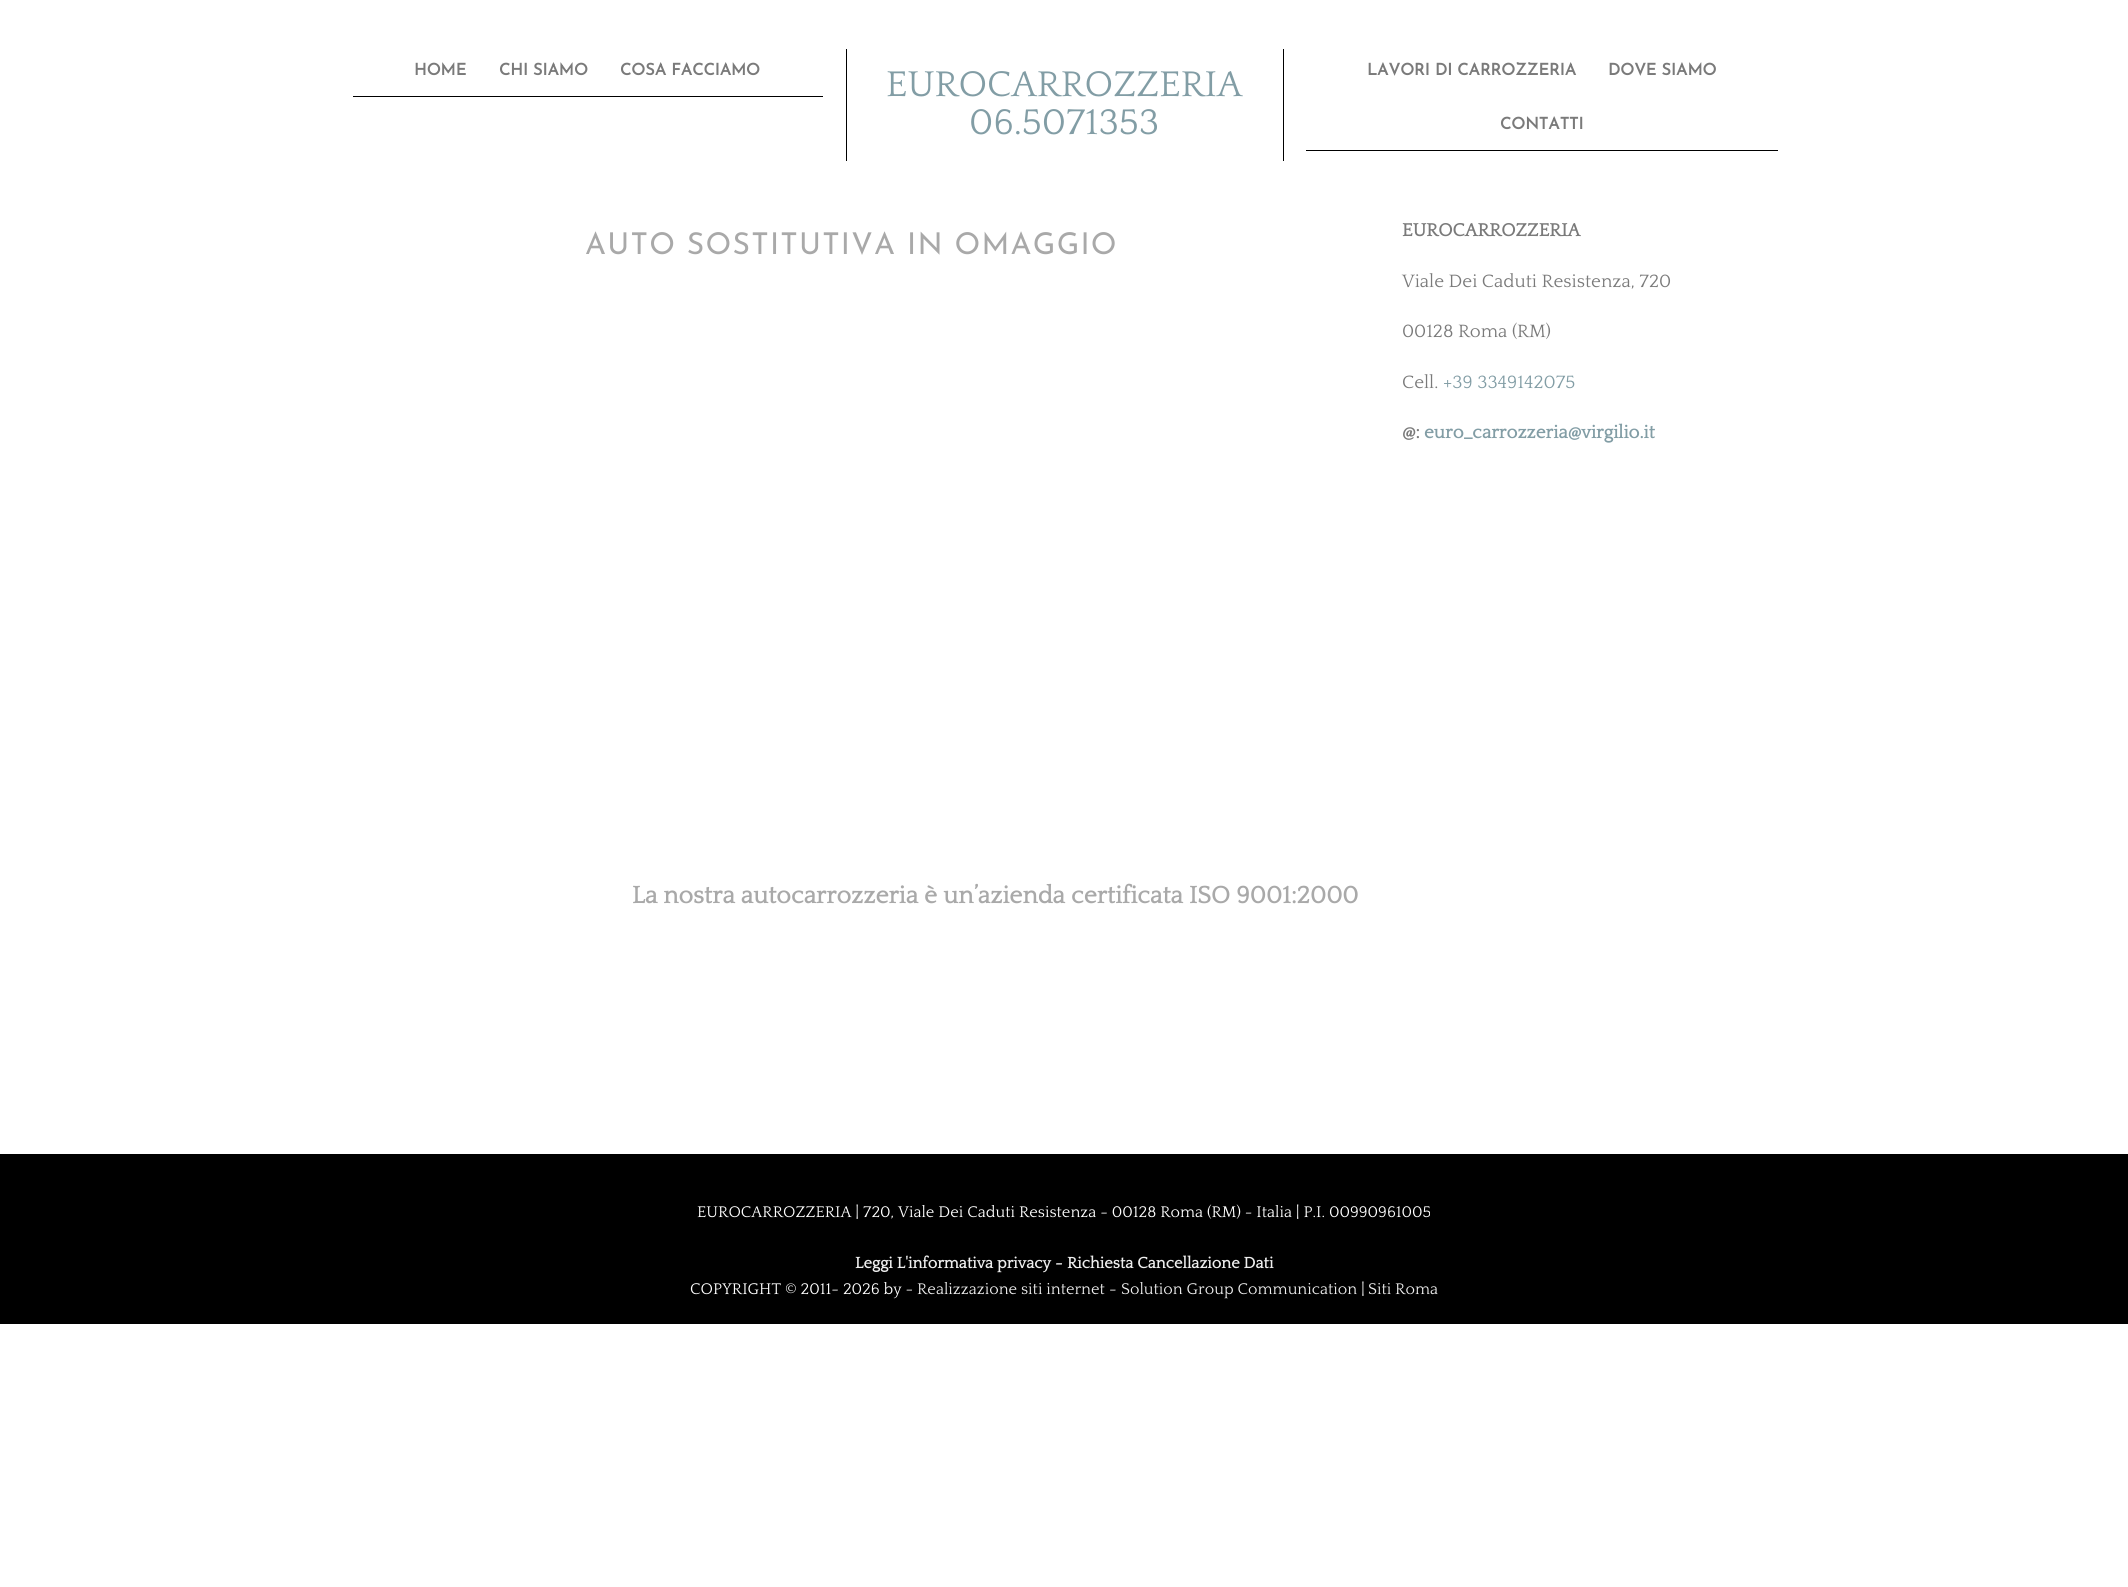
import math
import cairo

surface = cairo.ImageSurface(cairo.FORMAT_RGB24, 2128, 1587)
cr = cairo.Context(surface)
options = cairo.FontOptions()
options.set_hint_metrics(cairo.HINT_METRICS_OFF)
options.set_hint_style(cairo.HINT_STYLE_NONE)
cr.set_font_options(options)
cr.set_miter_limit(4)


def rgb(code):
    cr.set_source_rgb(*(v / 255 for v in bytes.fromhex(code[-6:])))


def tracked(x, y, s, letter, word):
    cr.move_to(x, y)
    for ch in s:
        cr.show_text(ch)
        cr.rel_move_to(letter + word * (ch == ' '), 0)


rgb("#ffffff")
cr.paint()
for x, y, w, h, color in [
    (353, 96, 470, 1, "#000000"),
    (1283, 49, 1, 112, "#000000"),
    (846, 49, 1, 112, "#000000"),
    (1306, 150, 472, 1, "#000000"),
    (0, 1154, 2128, 170, "#000000"),
]:
    rgb(color)
    cr.rectangle(x, y, w, h)
    cr.fill()
cr.select_font_face("Josefin Sans", cairo.FONT_SLANT_NORMAL, cairo.FONT_WEIGHT_BOLD)
cr.set_font_size(16.25)
rgb("#7a7a7a")
for x, y, s in [
    (414, 75, "HOME"),
    (499, 75, "CHI SIAMO"),
    (620, 75, "COSA FACCIAMO"),
]:
    cr.move_to(x, y)
    cr.show_text(s)
cr.select_font_face("Quattrocento")
cr.set_font_size(37.5)
rgb("#829da5")
cr.move_to(886, 96)
cr.show_text("EUROCARROZZERIA")
cr.move_to(969, 134)
cr.show_text("06.5071353")
cr.select_font_face("Josefin Sans", cairo.FONT_SLANT_NORMAL, cairo.FONT_WEIGHT_BOLD)
cr.set_font_size(16.25)
rgb("#7a7a7a")
for x, y, s in [
    (1367, 75, "LAVORI DI CARROZZERIA"),
    (1608, 75, "DOVE SIAMO"),
    (1500, 129, "CONTATTI"),
]:
    cr.move_to(x, y)
    cr.show_text(s)
cr.select_font_face("Josefin Sans Thin")
cr.set_font_size(30)
rgb("#a9a9a9")
tracked(585, 254, "AUTO SOSTITUTIVA IN OMAGGIO", 1.25, 0)
cr.select_font_face("Quattrocento", cairo.FONT_SLANT_NORMAL, cairo.FONT_WEIGHT_BOLD)
cr.set_font_size(18.75)
rgb("#7a7a7a")
cr.move_to(1402, 236)
cr.show_text("EUROCARROZZERIA")
cr.select_font_face("Quattrocento")
for x, y, s in [
    (1402, 287, "Viale Dei Caduti Resistenza, 720"),
    (1402, 337, "00128 Roma (RM)"),
    (1402, 388, "Cell."),
]:
    cr.move_to(x, y)
    cr.show_text(s)
rgb("#829da5")
cr.move_to(1443, 388)
cr.show_text("+39 3349142075")
cr.select_font_face("Quattrocento", cairo.FONT_SLANT_NORMAL, cairo.FONT_WEIGHT_BOLD)
rgb("#7a7a7a")
cr.move_to(1402, 438)
cr.show_text("@:")
rgb("#829da5")
cr.move_to(1424, 438)
cr.show_text("euro_carrozzeria@virgilio.it")
cr.set_font_size(25)
rgb("#a9a9a9")
cr.move_to(632, 903)
cr.show_text("La nostra autocarrozzeria è un’azienda certificata ISO 9001:2000")
cr.select_font_face("Quattrocento")
cr.set_font_size(16.25)
rgb("#ffffff")
cr.move_to(697, 1217)
cr.show_text("EUROCARROZZERIA | 720, Viale Dei Caduti Resistenza - 00128 Roma (RM) - Italia | P.I. 00990961005")
cr.select_font_face("Quattrocento", cairo.FONT_SLANT_NORMAL, cairo.FONT_WEIGHT_BOLD)
rgb("#eeeeee")
cr.move_to(855, 1268)
cr.show_text("Leggi L'informativa privacy")
rgb("#ffffff")
cr.move_to(1055, 1268)
cr.show_text("-")
rgb("#eeeeee")
cr.move_to(1067, 1268)
cr.show_text("Richiesta Cancellazione Dati")
cr.select_font_face("Quattrocento")
rgb("#ffffff")
cr.move_to(690, 1294)
cr.show_text("COPYRIGHT © 2011- 2026 by -")
rgb("#eeeeee")
cr.move_to(917, 1294)
cr.show_text("Realizzazione siti internet")
rgb("#ffffff")
cr.move_to(1109, 1294)
cr.show_text("-")
rgb("#eeeeee")
cr.move_to(1121, 1294)
cr.show_text("Solution Group Communication")
rgb("#ffffff")
cr.move_to(1361, 1294)
cr.show_text("|")
rgb("#eeeeee")
cr.move_to(1368, 1294)
cr.show_text("Siti Roma")
surface.write_to_png("page.png")
